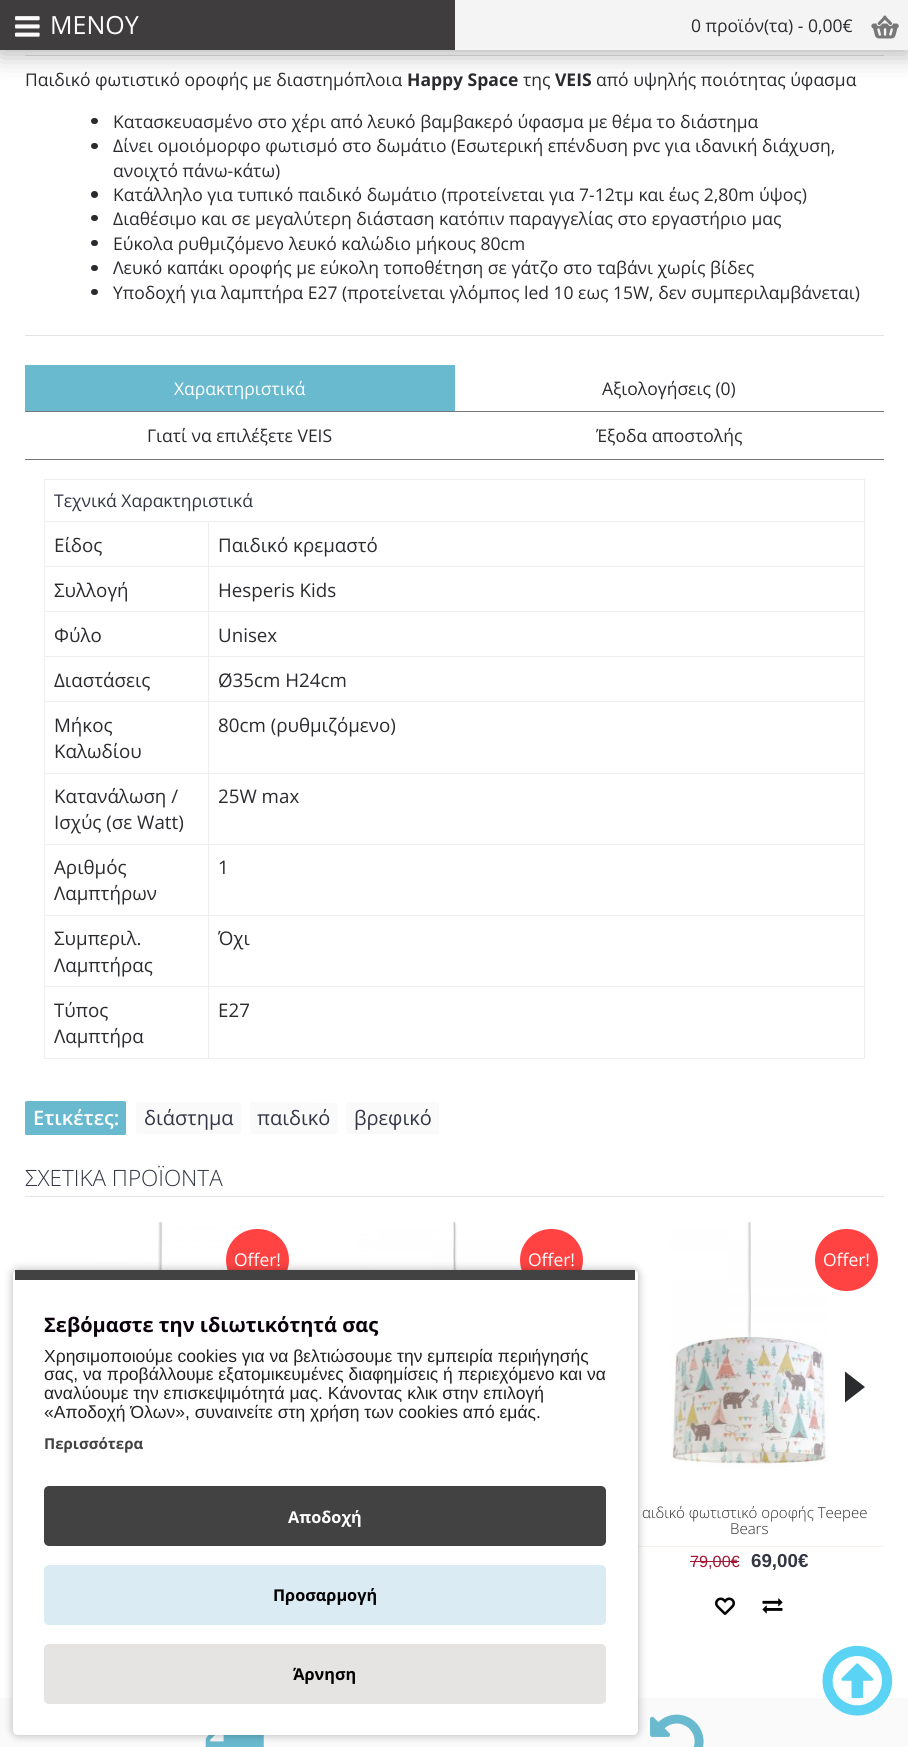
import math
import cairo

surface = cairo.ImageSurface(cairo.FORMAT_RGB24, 908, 1747)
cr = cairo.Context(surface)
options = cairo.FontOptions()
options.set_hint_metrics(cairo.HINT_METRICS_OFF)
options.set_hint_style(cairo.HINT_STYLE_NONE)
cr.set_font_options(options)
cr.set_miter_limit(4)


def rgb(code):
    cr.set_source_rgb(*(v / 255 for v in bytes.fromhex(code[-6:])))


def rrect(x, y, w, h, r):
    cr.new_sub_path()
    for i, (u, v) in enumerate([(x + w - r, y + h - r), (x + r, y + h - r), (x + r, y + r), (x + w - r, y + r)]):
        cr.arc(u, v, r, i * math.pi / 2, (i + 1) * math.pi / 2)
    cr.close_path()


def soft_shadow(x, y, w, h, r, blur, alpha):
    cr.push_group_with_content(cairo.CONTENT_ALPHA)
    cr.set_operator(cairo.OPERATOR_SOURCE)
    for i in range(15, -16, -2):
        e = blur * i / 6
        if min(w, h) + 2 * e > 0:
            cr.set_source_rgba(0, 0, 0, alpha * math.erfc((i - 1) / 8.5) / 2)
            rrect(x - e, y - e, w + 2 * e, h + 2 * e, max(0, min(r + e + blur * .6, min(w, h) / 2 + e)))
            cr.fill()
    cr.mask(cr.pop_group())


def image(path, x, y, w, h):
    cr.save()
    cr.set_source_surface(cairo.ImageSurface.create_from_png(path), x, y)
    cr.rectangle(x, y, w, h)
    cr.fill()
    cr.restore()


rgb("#ffffff")
cr.paint()
rgb("#e4e4e4")
cr.rectangle(25, 55, 859, 1)
cr.fill()
rgb("#000000")
soft_shadow(0, 4, 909, 50, 0, 12.5, 0.3)
rgb("#403d3e")
cr.rectangle(0, 0, 455, 50)
cr.fill()
image("img/1.png", 15, 16, 25, 21)
rgb("#f4f4f4")
cr.rectangle(455, 0, 453, 50)
cr.fill()
image("img/2.png", 871, 15, 28, 24)
rgb("#e4e4e4")
cr.rectangle(25, 335, 859, 1)
cr.fill()
rgb("#2a2b2e")
rrect(91, 118, 7, 6, 3)
cr.fill()
rrect(91, 143, 7, 6, 3)
cr.fill()
cr.arc(94.5, 194.5, 3.5, 0, 2 * math.pi)
cr.fill()
rrect(91, 215, 7, 6, 3)
cr.fill()
rrect(91, 240, 7, 6, 3)
cr.fill()
rrect(91, 265, 7, 6, 3)
cr.fill()
rrect(91, 289, 7, 6, 3)
cr.fill()
for x, y, w, h, color in [
    (25, 411, 859, 1, "#777777"),
    (25, 365, 430, 46, "#69b9cf"),
    (25, 459, 859, 1, "#777777"),
    (44, 479, 821, 1, "#eeeeee"),
    (44, 479, 1, 580, "#eeeeee"),
    (864, 479, 1, 580, "#eeeeee"),
    (208, 1058, 657, 1, "#eeeeee"),
    (208, 986, 1, 73, "#eeeeee"),
    (208, 986, 657, 1, "#eeeeee"),
    (208, 915, 1, 73, "#eeeeee"),
    (208, 915, 657, 1, "#eeeeee"),
    (208, 844, 1, 72, "#eeeeee"),
    (208, 844, 657, 1, "#eeeeee"),
    (208, 773, 1, 72, "#eeeeee"),
    (208, 773, 657, 1, "#eeeeee"),
    (208, 701, 1, 73, "#eeeeee"),
    (208, 701, 657, 1, "#eeeeee"),
    (208, 656, 1, 47, "#eeeeee"),
    (208, 656, 657, 1, "#eeeeee"),
    (208, 611, 1, 47, "#eeeeee"),
    (208, 611, 657, 1, "#eeeeee"),
    (208, 566, 1, 47, "#eeeeee"),
    (208, 566, 657, 1, "#eeeeee"),
    (208, 521, 1, 47, "#eeeeee"),
    (44, 521, 821, 1, "#eeeeee"),
    (44, 566, 165, 1, "#eeeeee"),
    (44, 611, 165, 1, "#eeeeee"),
    (44, 656, 165, 1, "#eeeeee"),
    (44, 701, 165, 1, "#eeeeee"),
    (44, 773, 165, 1, "#eeeeee"),
    (44, 844, 165, 1, "#eeeeee"),
    (44, 915, 165, 1, "#eeeeee"),
    (44, 986, 165, 1, "#eeeeee"),
    (44, 1058, 165, 1, "#eeeeee"),
]:
    rgb(color)
    cr.rectangle(x, y, w, h)
    cr.fill()
rgb("#69b9cf")
cr.new_path()
cr.move_to(27, 1101)
cr.line_to(124, 1101)
cr.curve_to(125, 1101, 126, 1102, 126, 1102)
cr.line_to(126, 1134)
cr.curve_to(126, 1135, 125, 1135, 124, 1135)
cr.line_to(27, 1135)
cr.curve_to(26, 1135, 25, 1135, 25, 1134)
cr.line_to(25, 1102)
cr.curve_to(25, 1102, 26, 1101, 27, 1101)
cr.close_path()
cr.fill()
rgb("#fafafa")
cr.new_path()
cr.move_to(138, 1102)
cr.line_to(239, 1102)
cr.line_to(241, 1103)
cr.line_to(241, 1133)
cr.line_to(239, 1134)
cr.line_to(138, 1134)
cr.line_to(136, 1133)
cr.line_to(136, 1103)
cr.close_path()
cr.fill()
cr.new_path()
cr.move_to(252, 1102)
cr.line_to(337, 1103)
cr.line_to(338, 1118)
cr.curve_to(338, 1138, 342, 1134, 322, 1134)
cr.line_to(266, 1134)
cr.curve_to(246, 1134, 250, 1138, 250, 1118)
cr.line_to(250, 1108)
cr.curve_to(250, 1105, 249, 1102, 252, 1102)
cr.close_path()
cr.fill()
cr.new_path()
cr.move_to(348, 1102)
cr.line_to(437, 1102)
cr.line_to(439, 1103)
cr.line_to(439, 1133)
cr.line_to(437, 1134)
cr.line_to(348, 1134)
cr.line_to(346, 1133)
cr.line_to(346, 1103)
cr.close_path()
cr.fill()
rgb("#e4e4e4")
cr.rectangle(25, 1196, 859, 1)
cr.fill()
image("img/3.png", 80, 1222, 161, 48)
rgb("#ff4343")
rrect(226, 1229, 63, 62, 31)
cr.fill()
image("img/4.png", 358, 1222, 193, 48)
rrect(520, 1229, 63, 62, 31)
cr.fill()
image("img/5.png", 670, 1222, 159, 248)
rrect(815, 1229, 63, 62, 31)
cr.fill()
rgb("#f6f1ec")
cr.rectangle(638, 1546, 246, 1)
cr.fill()
rgb("#a41733")
cr.rectangle(690, 1561, 49, 1)
cr.fill()
image("img/6.png", 715, 1597, 20, 18)
image("img/7.png", 762, 1598, 21, 16)
rgb("#2a2b2e")
cr.new_path()
cr.move_to(845, 1371.5)
cr.line_to(845, 1402.5)
cr.line_to(865, 1387)
cr.close_path()
cr.fill()
rgb("#fafafa")
cr.rectangle(0, 1698, 908, 49)
cr.fill()
image("img/9.png", 205, 1735, 59, 12)
image("img/10.png", 650, 1714, 54, 33)
rgb("#000000")
soft_shadow(13, 1270, 625, 465, 5, 4.5, 0.3)
rgb("#ffffff")
rrect(13, 1270, 625, 465, 5)
cr.fill()
rgb("#424242")
cr.rectangle(15, 1270, 620, 10)
cr.fill()
rrect(44, 1486, 562, 60, 5)
cr.fill()
rgb("#daebf3")
rrect(44, 1565, 562, 60, 5)
cr.fill()
rgb("#e6e4e3")
rrect(44, 1644, 562, 60, 5)
cr.fill()
image("img/8.png", 822, 1645, 71, 71)
cr.select_font_face("Open Sans")
cr.set_font_size(25)
rgb("#ffffff")
cr.move_to(50, 34)
cr.show_text("ΜΕΝΟΥ")
cr.set_font_size(17.5)
rgb("#2a2b2e")
cr.move_to(691, 32)
cr.show_text("0 προϊόν(τα) - 0,00€")
cr.move_to(25, 86)
cr.show_text("Παιδικό φωτιστικό οροφής με διαστημόπλοια")
cr.select_font_face("Open Sans", cairo.FONT_SLANT_NORMAL, cairo.FONT_WEIGHT_BOLD)
cr.move_to(407, 86)
cr.show_text("Happy Space")
cr.select_font_face("Open Sans")
cr.move_to(523, 86)
cr.show_text("της")
cr.select_font_face("Open Sans", cairo.FONT_SLANT_NORMAL, cairo.FONT_WEIGHT_BOLD)
cr.move_to(555, 86)
cr.show_text("VEIS")
cr.select_font_face("Open Sans")
for x, y, s in [
    (596, 86, "από υψηλής ποιότητας ύφασμα"),
    (113, 128, "Κατασκευασμένο στο χέρι από λευκό βαμβακερό ύφασμα με θέμα το διάστημα"),
    (113, 152, "Δίνει ομοιόμορφο φωτισμό στο δωμάτιο (Εσωτερική επένδυση pvc για ιδανική διάχυση,"),
    (113, 177, "ανοιχτό πάνω-κάτω)"),
    (113, 201, "Κατάλληλο για τυπικό παιδικό δωμάτιο (προτείνεται για 7-12τμ και έως 2,80m ύψος)"),
    (113, 225, "Διαθέσιμο και σε μεγαλύτερη διάσταση κατόπιν παραγγελίας στο εργαστήριο μας"),
    (113, 250, "Εύκολα ρυθμιζόμενο λευκό καλώδιο μήκους 80cm"),
    (113, 274, "Λευκό καπάκι οροφής με εύκολη τοποθέτηση σε γάτζο στο ταβάνι χωρίς βίδες"),
    (113, 299, "Υποδοχή για λαμπτήρα E27 (προτείνεται γλόμπος led 10 εως 15W, δεν συμπεριλαμβάνεται)"),
]:
    cr.move_to(x, y)
    cr.show_text(s)
rgb("#ffffff")
cr.move_to(174, 395)
cr.show_text("Χαρακτηριστικά")
rgb("#2a2b2e")
for x, y, s in [
    (602, 395, "Αξιολογήσεις (0)"),
    (147, 442, "Γιατί να επιλέξετε VEIS"),
    (596, 442, "Έξοδα αποστολής"),
]:
    cr.move_to(x, y)
    cr.show_text(s)
rgb("#333745")
cr.move_to(54, 507)
cr.show_text("Τεχνικά Χαρακτηριστικά")
cr.set_font_size(18.75)
rgb("#2a2b2e")
for x, y, s in [
    (54, 552, "Είδος"),
    (218, 552, "Παιδικό κρεμαστό"),
    (54, 597, "Συλλογή"),
    (218, 597, "Hesperis Kids"),
    (54, 642, "Φύλο"),
    (218, 642, "Unisex"),
    (54, 687, "Διαστάσεις"),
    (218, 687, "Ø35cm H24cm"),
    (54, 732, "Μήκος"),
    (54, 758, "Καλωδίου"),
    (218, 732, "80cm (ρυθμιζόμενο)"),
    (54, 803, "Κατανάλωση /"),
    (54, 829, "Ισχύς (σε Watt)"),
    (218, 803, "25W max"),
    (54, 874, "Αριθμός"),
    (54, 900, "Λαμπτήρων"),
    (218, 874, "1"),
    (54, 945, "Συμπεριλ."),
    (54, 972, "Λαμπτήρας"),
    (218, 945, "Όχι"),
    (54, 1017, "Τύπος"),
    (54, 1043, "Λαμπτήρα"),
    (218, 1017, "Ε27"),
]:
    cr.move_to(x, y)
    cr.show_text(s)
cr.select_font_face("Open Sans SemiBold")
cr.set_font_size(20)
rgb("#ffffff")
cr.move_to(33, 1125)
cr.show_text("Ετικέτες:")
cr.select_font_face("Open Sans")
rgb("#333745")
for x, y, s in [
    (144, 1125, "διάστημα"),
    (257, 1125, "παιδικό"),
    (354, 1125, "βρεφικό"),
]:
    cr.move_to(x, y)
    cr.show_text(s)
cr.select_font_face("Open Sans Light")
cr.set_font_size(22.5)
cr.move_to(25, 1186)
cr.show_text("ΣΧΕΤΙΚΑ ΠΡΟΪΟΝΤΑ")
cr.select_font_face("Open Sans")
cr.set_font_size(17.5)
rgb("#ffffff")
for x, y, s in [
    (234, 1266, "Offer!"),
    (528, 1266, "Offer!"),
    (823, 1266, "Offer!"),
]:
    cr.move_to(x, y)
    cr.show_text(s)
cr.select_font_face("Open Sans Light")
cr.set_font_size(15)
rgb("#2a2b2e")
cr.move_to(642, 1518)
cr.show_text("αιδικό φωτιστικό οροφής Teepee")
cr.move_to(730, 1534)
cr.show_text("Bears")
cr.select_font_face("Liberation Sans")
cr.set_font_size(16.25)
rgb("#a41733")
cr.move_to(690, 1567)
cr.show_text("79,00€")
cr.select_font_face("Liberation Sans", cairo.FONT_SLANT_NORMAL, cairo.FONT_WEIGHT_BOLD)
cr.set_font_size(18.75)
rgb("#333745")
cr.move_to(751, 1567)
cr.show_text("69,00€")
cr.select_font_face("Open Sans", cairo.FONT_SLANT_NORMAL, cairo.FONT_WEIGHT_BOLD)
cr.set_font_size(20)
rgb("#0a010a")
cr.move_to(44, 1332)
cr.show_text("Σεβόμαστε την ιδιωτικότητά σας")
cr.select_font_face("Liberation Sans")
cr.set_font_size(17.5)
rgb("#212121")
for x, y, s in [
    (44, 1362, "Χρησιμοποιούμε cookies για να βελτιώσουμε την εμπειρία περιήγησής"),
    (44, 1380, "σας, να προβάλλουμε εξατομικευμένες διαφημίσεις ή περιεχόμενο και να"),
    (44, 1399, "αναλύουμε την επισκεψιμότητά μας. Κάνοντας κλικ στην επιλογή"),
    (44, 1418, "«Αποδοχή Όλων», συναινείτε στη χρήση των cookies από εμάς."),
]:
    cr.move_to(x, y)
    cr.show_text(s)
cr.select_font_face("Open Sans", cairo.FONT_SLANT_NORMAL, cairo.FONT_WEIGHT_BOLD)
cr.set_font_size(15)
rgb("#424242")
cr.move_to(44, 1449)
cr.show_text("Περισσότερα")
cr.set_font_size(16.25)
rgb("#ffffff")
cr.move_to(288, 1523)
cr.show_text("Αποδοχή")
rgb("#000000")
cr.move_to(273, 1601)
cr.show_text("Προσαρμογή")
cr.move_to(293, 1680)
cr.show_text("Άρνηση")
surface.write_to_png("page.png")
